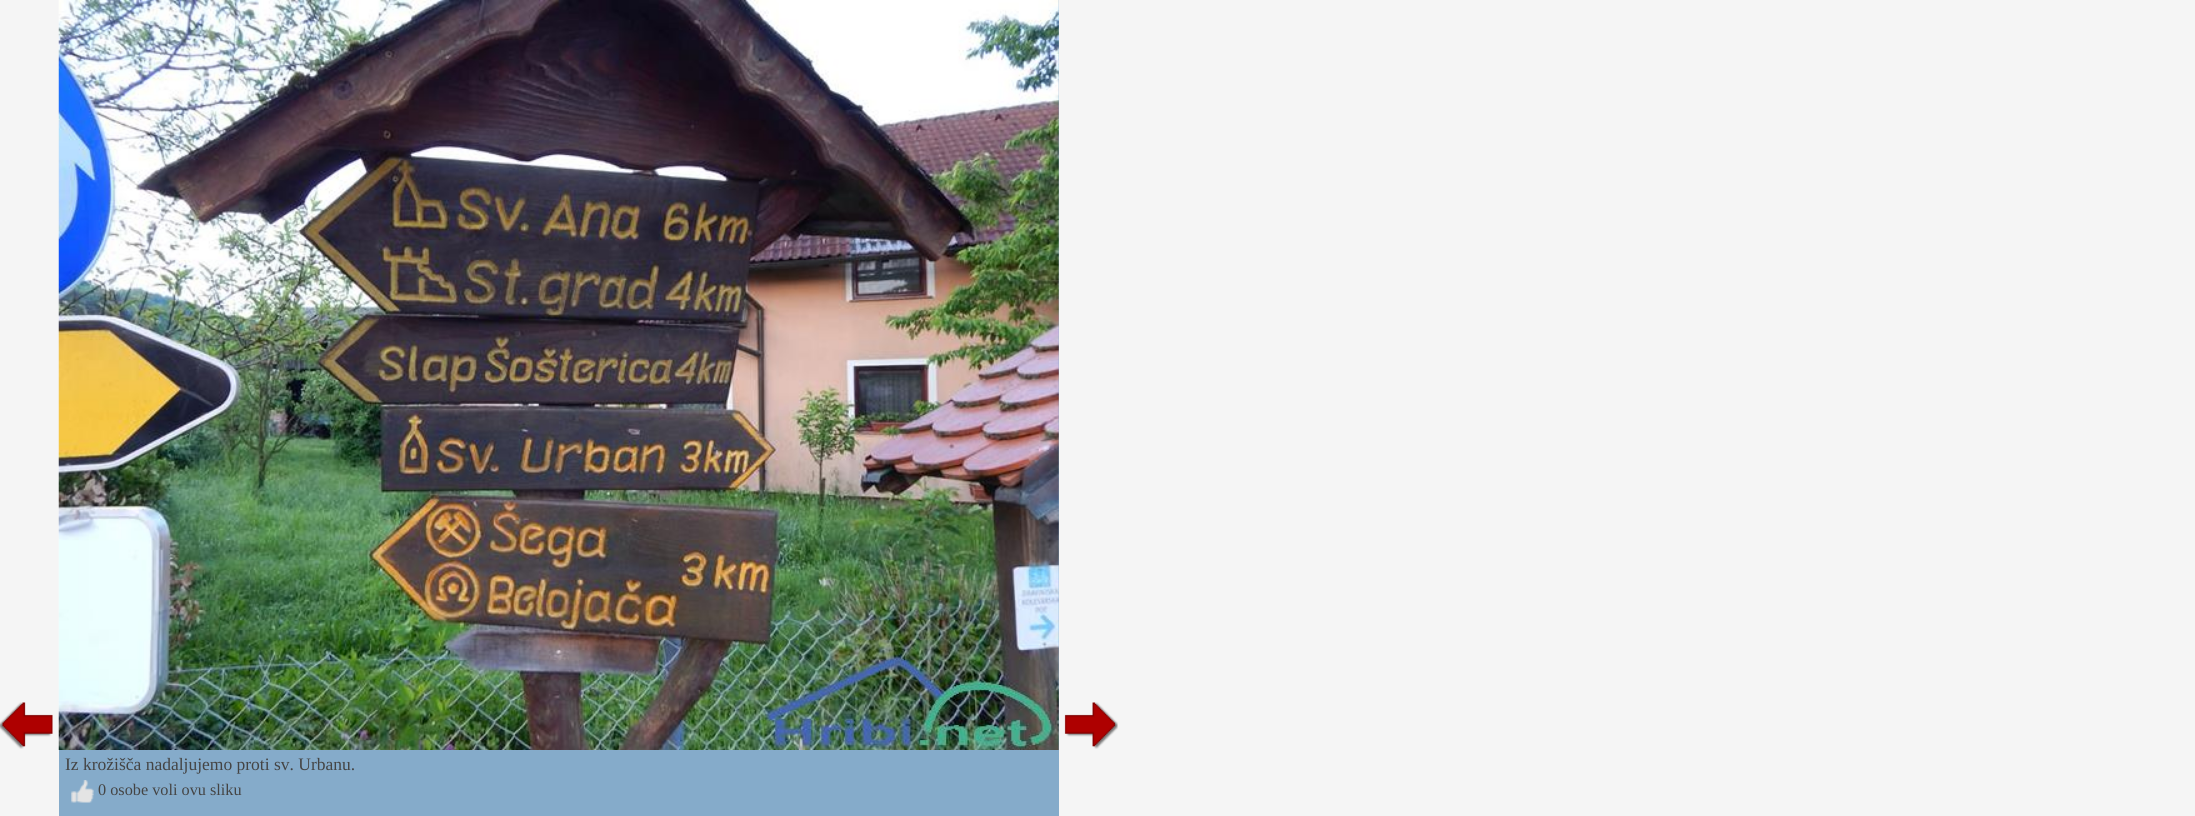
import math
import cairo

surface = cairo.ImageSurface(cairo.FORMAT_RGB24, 2195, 816)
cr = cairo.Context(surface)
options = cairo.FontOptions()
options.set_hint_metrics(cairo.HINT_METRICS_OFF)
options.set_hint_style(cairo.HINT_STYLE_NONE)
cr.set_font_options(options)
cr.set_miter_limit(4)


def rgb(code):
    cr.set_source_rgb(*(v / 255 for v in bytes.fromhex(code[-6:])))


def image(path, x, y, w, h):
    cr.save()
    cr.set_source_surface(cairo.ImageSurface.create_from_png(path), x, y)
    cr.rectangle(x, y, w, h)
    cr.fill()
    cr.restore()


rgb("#f5f5f5")
cr.paint()
image("img/1.png", 0, 702, 53, 47)
image("img/2.png", 1064, 702, 54, 47)
rgb("#85abca")
cr.rectangle(59, 0, 1000, 816)
cr.fill()
image("img/3.png", 58, 0, 1001, 750)
image("img/4.png", 71, 780, 23, 23)
cr.select_font_face("Liberation Serif")
cr.set_font_size(17.5)
rgb("#444444")
cr.move_to(65, 770)
cr.show_text("Iz krožišča nadaljujemo proti sv. Urbanu.")
cr.set_font_size(16.25)
cr.move_to(98, 795)
cr.show_text("0 osobe voli ovu sliku")
surface.write_to_png("page.png")
